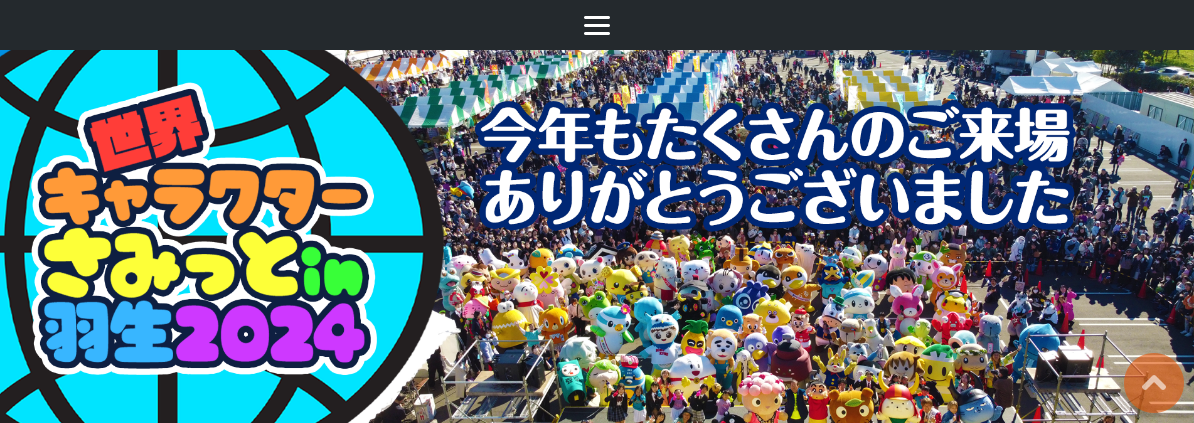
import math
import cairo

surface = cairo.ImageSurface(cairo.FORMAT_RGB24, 1194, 423)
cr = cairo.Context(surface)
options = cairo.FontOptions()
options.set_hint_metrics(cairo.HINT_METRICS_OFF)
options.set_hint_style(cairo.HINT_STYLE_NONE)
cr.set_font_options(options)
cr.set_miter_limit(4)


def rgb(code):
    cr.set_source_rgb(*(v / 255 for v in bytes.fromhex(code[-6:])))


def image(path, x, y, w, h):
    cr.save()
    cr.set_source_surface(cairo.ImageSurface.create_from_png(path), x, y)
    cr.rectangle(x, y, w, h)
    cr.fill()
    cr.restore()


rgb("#ffffff")
cr.paint()
rgb("#24292d")
cr.rectangle(0, 0, 1194, 50)
cr.fill()
image("img/1.png", 584, 16, 26, 19)
image("img/2.png", 0, 50, 1194, 373)
cr.set_source_rgba(0.886, 0.329, 0.027, 0.6)
cr.arc(1154, 383, 30, 0, 2 * math.pi)
cr.fill()
image("img/3.png", 1142, 375, 24, 15)
surface.write_to_png("page.png")
